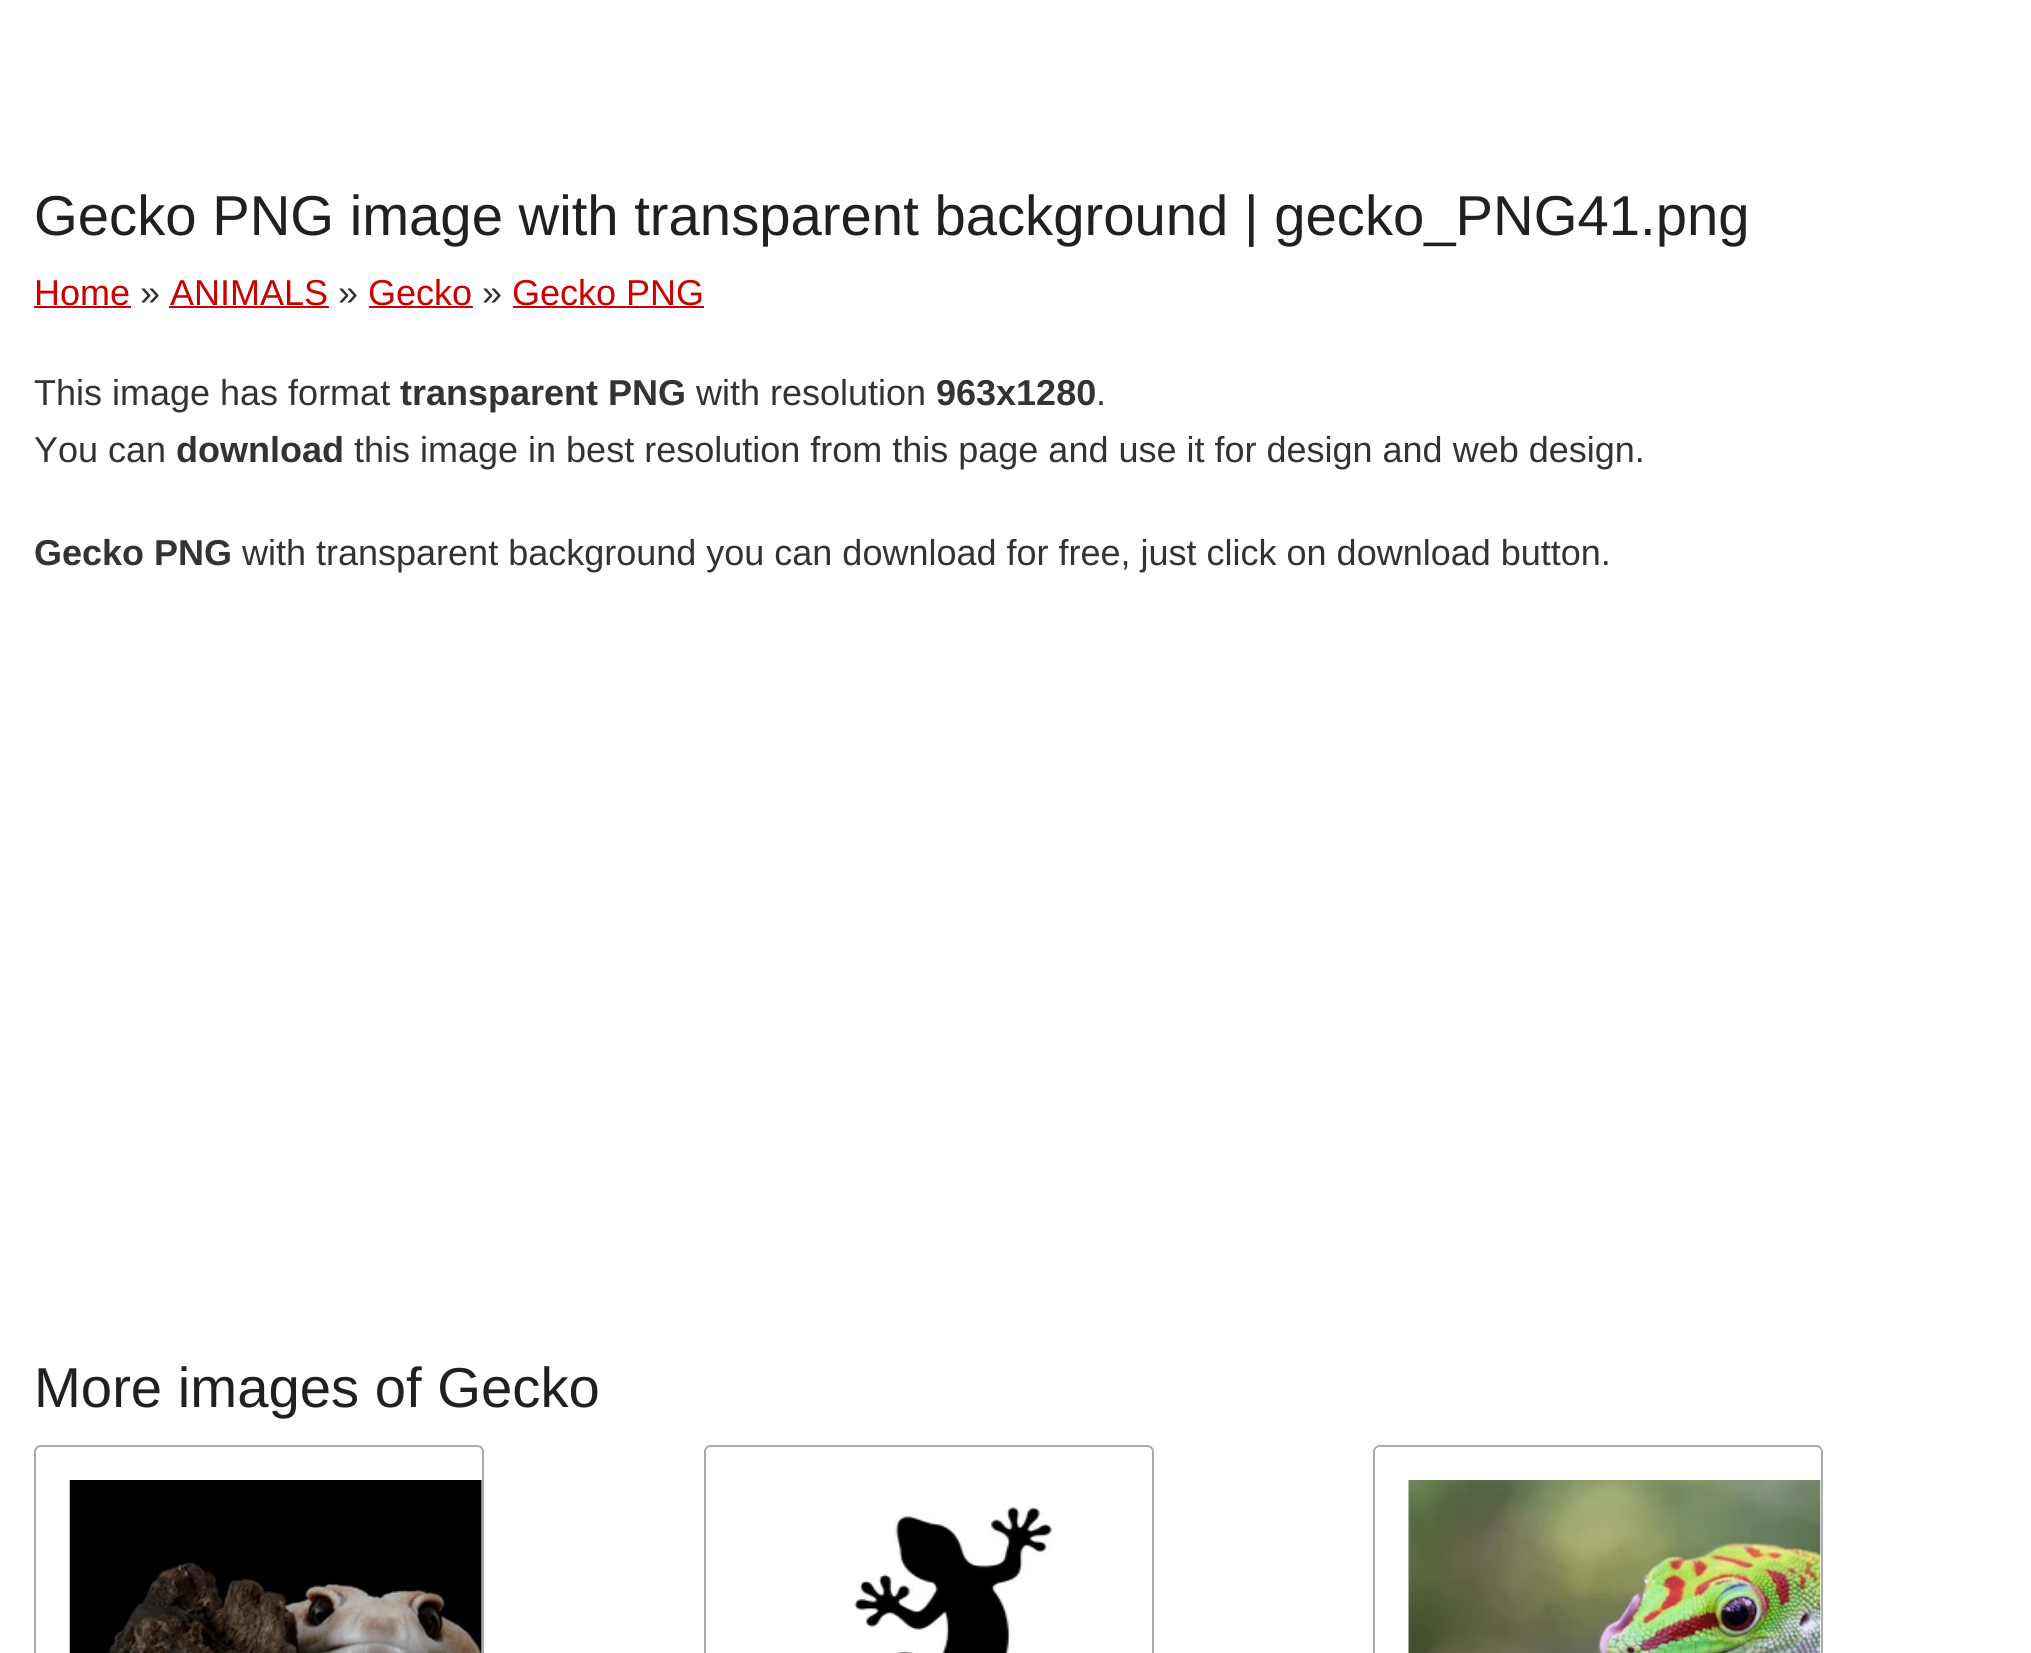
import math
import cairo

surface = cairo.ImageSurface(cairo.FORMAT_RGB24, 2031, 1653)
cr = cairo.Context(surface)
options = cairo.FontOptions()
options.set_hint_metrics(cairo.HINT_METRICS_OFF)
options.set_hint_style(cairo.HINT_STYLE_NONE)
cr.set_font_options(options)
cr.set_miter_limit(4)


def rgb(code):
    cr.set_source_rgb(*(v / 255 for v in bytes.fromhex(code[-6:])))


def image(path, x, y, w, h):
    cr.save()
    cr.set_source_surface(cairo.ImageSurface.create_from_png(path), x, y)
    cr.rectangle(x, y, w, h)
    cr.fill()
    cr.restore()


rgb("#ffffff")
cr.paint()
for x, y, w, h, color in [
    (34, 306, 97, 2, "#cc0000"),
    (169, 306, 160, 2, "#cc0000"),
    (369, 306, 104, 2, "#cc0000"),
    (513, 306, 191, 2, "#cc0000"),
]:
    rgb(color)
    cr.rectangle(x, y, w, h)
    cr.fill()
cr.new_path()
cr.move_to(41, 1446)
cr.line_to(477, 1446)
cr.curve_to(480.5, 1446, 483, 1448.5, 483, 1452)
cr.line_to(483, 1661)
cr.line_to(35, 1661)
cr.line_to(35, 1452)
cr.curve_to(35, 1448.5, 37.5, 1446, 41, 1446)
cr.close_path()
rgb("#aaaaaa")
cr.stroke()
image("img/1.png", 69, 1480, 413, 173)
cr.new_path()
cr.move_to(711, 1446)
cr.line_to(1147, 1446)
cr.curve_to(1150.5, 1446, 1153, 1448.5, 1153, 1452)
cr.line_to(1153, 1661)
cr.line_to(705, 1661)
cr.line_to(705, 1452)
cr.curve_to(705, 1448.5, 707.5, 1446, 711, 1446)
cr.close_path()
cr.stroke()
image("img/2.png", 853, 1505, 200, 148)
cr.new_path()
cr.move_to(1380, 1446)
cr.line_to(1816, 1446)
cr.curve_to(1819.5, 1446, 1822, 1448.5, 1822, 1452)
cr.line_to(1822, 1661)
cr.line_to(1374, 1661)
cr.line_to(1374, 1452)
cr.curve_to(1374, 1448.5, 1376.5, 1446, 1380, 1446)
cr.close_path()
cr.stroke()
image("img/3.png", 1408, 1480, 413, 173)
cr.select_font_face("Liberation Sans")
cr.set_font_size(56.25)
rgb("#231f1f")
cr.move_to(34, 235)
cr.show_text("Gecko PNG image with transparent background | gecko_PNG41.png")
cr.set_font_size(36)
rgb("#cc0000")
cr.move_to(34, 305)
cr.show_text("Home")
rgb("#333333")
cr.move_to(140, 305)
cr.show_text("»")
rgb("#cc0000")
cr.move_to(170, 305)
cr.show_text("ANIMALS")
rgb("#333333")
cr.move_to(338, 305)
cr.show_text("»")
rgb("#cc0000")
cr.move_to(368, 305)
cr.show_text("Gecko")
rgb("#333333")
cr.move_to(482, 305)
cr.show_text("»")
rgb("#cc0000")
cr.move_to(512, 305)
cr.show_text("Gecko PNG")
rgb("#333333")
cr.move_to(34, 405)
cr.show_text("This image has format")
cr.select_font_face("Liberation Sans", cairo.FONT_SLANT_NORMAL, cairo.FONT_WEIGHT_BOLD)
cr.move_to(400, 405)
cr.show_text("transparent PNG")
cr.select_font_face("Liberation Sans")
cr.move_to(696, 405)
cr.show_text("with resolution")
cr.select_font_face("Liberation Sans", cairo.FONT_SLANT_NORMAL, cairo.FONT_WEIGHT_BOLD)
cr.move_to(936, 405)
cr.show_text("963x1280")
cr.select_font_face("Liberation Sans")
cr.move_to(1096, 405)
cr.show_text(".")
cr.move_to(34, 462)
cr.show_text("You can")
cr.select_font_face("Liberation Sans", cairo.FONT_SLANT_NORMAL, cairo.FONT_WEIGHT_BOLD)
cr.move_to(176, 462)
cr.show_text("download")
cr.select_font_face("Liberation Sans")
cr.move_to(354, 462)
cr.show_text("this image in best resolution from this page and use it for design and web design.")
cr.select_font_face("Liberation Sans", cairo.FONT_SLANT_NORMAL, cairo.FONT_WEIGHT_BOLD)
cr.move_to(34, 565)
cr.show_text("Gecko PNG")
cr.select_font_face("Liberation Sans")
cr.move_to(242, 565)
cr.show_text("with transparent background you can download for free, just click on download button.")
cr.set_font_size(56.25)
rgb("#231f1f")
cr.move_to(34, 1407)
cr.show_text("More images of Gecko")
surface.write_to_png("page.png")
